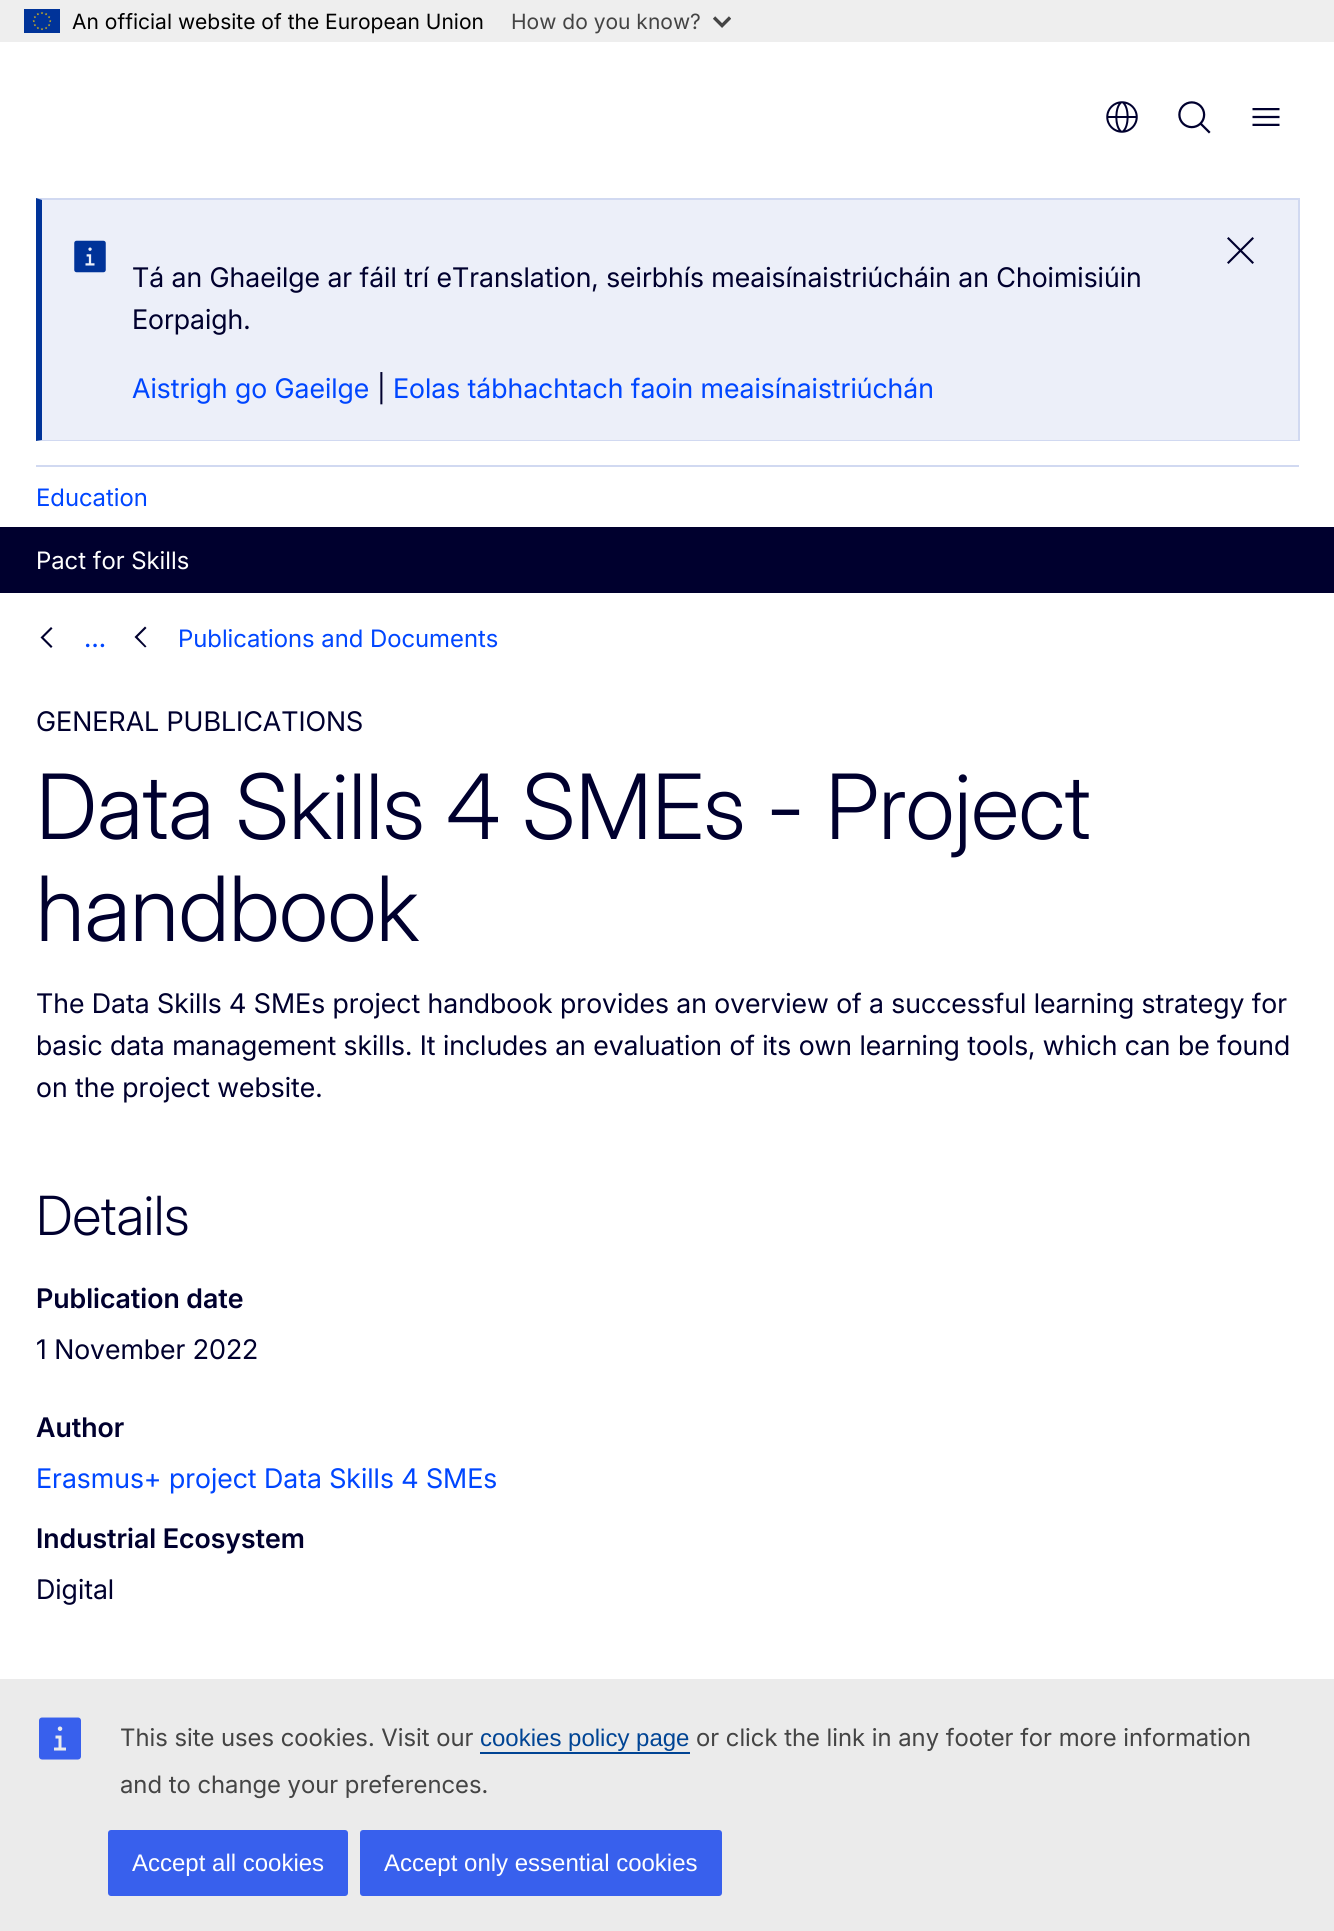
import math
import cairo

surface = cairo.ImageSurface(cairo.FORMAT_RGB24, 1334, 1931)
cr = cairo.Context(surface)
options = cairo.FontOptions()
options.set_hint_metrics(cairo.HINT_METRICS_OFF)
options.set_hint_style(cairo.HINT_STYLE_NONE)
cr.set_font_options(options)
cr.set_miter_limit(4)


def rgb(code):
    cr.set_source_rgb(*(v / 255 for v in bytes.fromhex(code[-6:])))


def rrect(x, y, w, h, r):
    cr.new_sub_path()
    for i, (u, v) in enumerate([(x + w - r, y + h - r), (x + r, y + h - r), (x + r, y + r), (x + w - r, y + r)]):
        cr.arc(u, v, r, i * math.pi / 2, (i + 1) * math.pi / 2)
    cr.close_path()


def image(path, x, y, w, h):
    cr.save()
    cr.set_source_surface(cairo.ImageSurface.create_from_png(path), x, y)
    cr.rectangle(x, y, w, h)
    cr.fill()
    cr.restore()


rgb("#ffffff")
cr.paint()
rgb("#eeeeee")
cr.rectangle(0, 0, 1334, 42)
cr.fill()
image("img/1.png", 24, 9, 36, 24)
image("img/2.png", 713, 16, 18, 12)
image("img/3.png", 1106, 101, 32, 32)
image("img/4.png", 1178, 101, 33, 33)
image("img/5.png", 1252, 108, 28, 18)
rgb("#eceff9")
cr.rectangle(42, 200, 1256, 240)
cr.fill()
rgb("#d1d9f1")
cr.new_path()
cr.move_to(36, 198)
cr.line_to(1299, 198)
cr.line_to(1298, 200)
cr.line_to(42, 200)
cr.close_path()
cr.fill()
cr.rectangle(1298, 198, 2, 243)
cr.fill()
cr.new_path()
cr.move_to(1299, 441)
cr.line_to(36, 441)
cr.line_to(42, 440)
cr.line_to(1298, 440)
cr.close_path()
cr.fill()
rgb("#003399")
cr.new_path()
cr.move_to(36, 441)
cr.line_to(36, 198)
cr.line_to(42, 200)
cr.line_to(42, 440)
cr.close_path()
cr.fill()
image("img/6.png", 74, 240, 32, 33)
image("img/7.png", 1227, 237, 27, 27)
rgb("#d1d9f1")
cr.rectangle(36, 465, 1263, 2)
cr.fill()
rgb("#00002e")
cr.rectangle(0, 527, 1334, 66)
cr.fill()
cr.new_path()
cr.move_to(51, 627)
cr.line_to(52.5, 628.5)
cr.line_to(43.5, 637.5)
cr.line_to(52.5, 646.5)
cr.line_to(51, 648)
cr.line_to(40.5, 637.5)
cr.close_path()
cr.fill()
cr.new_path()
cr.move_to(145, 626.5)
cr.line_to(146.5, 628)
cr.line_to(137.5, 637)
cr.line_to(146.5, 646.5)
cr.line_to(145, 647.5)
cr.line_to(134.5, 637)
cr.close_path()
cr.fill()
rgb("#ebebeb")
cr.rectangle(0, 1679, 1334, 252)
cr.fill()
image("img/8.png", 39, 1717, 42, 43)
rgb("#004494")
cr.rectangle(480, 1752, 210, 2)
cr.fill()
rgb("#3860ed")
rrect(108, 1830, 240, 66, 3)
cr.fill()
rrect(360, 1830, 362, 66, 3)
cr.fill()
cr.select_font_face("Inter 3")
cr.set_font_size(21)
rgb("#000000")
cr.move_to(72, 29)
cr.show_text("An official website of the European Union")
rgb("#444444")
cr.move_to(511, 29)
cr.show_text("How do you know?")
cr.select_font_face("Inter")
cr.set_font_size(27)
rgb("#00002e")
cr.move_to(132, 287)
cr.show_text("Tá an Ghaeilge ar fáil trí eTranslation, seirbhís meaisínaistriúcháin an Choimisiúin")
cr.move_to(132, 329)
cr.show_text("Eorpaigh.")
rgb("#0046ff")
cr.move_to(132, 398)
cr.show_text("Aistrigh go Gaeilge")
rgb("#00002e")
cr.move_to(377, 398)
cr.show_text("|")
rgb("#0046ff")
cr.move_to(393, 398)
cr.show_text("Eolas tábhachtach faoin meaisínaistriúchán")
cr.select_font_face("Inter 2")
cr.set_font_size(24)
cr.move_to(36, 506)
cr.show_text("Education")
rgb("#ffffff")
cr.move_to(36, 569)
cr.show_text("Pact for Skills")
cr.select_font_face("Inter")
cr.set_font_size(27)
rgb("#0046ff")
cr.move_to(84, 647)
cr.show_text("…")
cr.select_font_face("Inter 2")
cr.set_font_size(24)
cr.move_to(178, 647)
cr.show_text("Publications and Documents")
cr.select_font_face("Inter")
cr.set_font_size(27)
rgb("#00002e")
cr.move_to(36, 731)
cr.show_text("GENERAL PUBLICATIONS")
cr.select_font_face("Inter Light")
cr.set_font_size(90)
cr.move_to(36, 839)
cr.show_text("Data Skills 4 SMEs - Project")
cr.move_to(36, 941)
cr.show_text("handbook")
cr.select_font_face("Inter")
cr.set_font_size(27)
for x, y, s in [
    (36, 1013, "The Data Skills 4 SMEs project handbook provides an overview of a successful learning strategy for"),
    (36, 1055, "basic data management skills. It includes an evaluation of its own learning tools, which can be found"),
    (36, 1097, "on the project website."),
]:
    cr.move_to(x, y)
    cr.show_text(s)
cr.select_font_face("Inter Light")
cr.set_font_size(54)
cr.move_to(36, 1235)
cr.show_text("Details")
cr.select_font_face("Inter SemiBold")
cr.set_font_size(27)
cr.move_to(36, 1308)
cr.show_text("Publication date")
cr.select_font_face("Inter")
cr.move_to(36, 1359)
cr.show_text("1 November 2022")
cr.select_font_face("Inter SemiBold")
cr.move_to(36, 1437)
cr.show_text("Author")
cr.select_font_face("Inter")
rgb("#0046ff")
cr.move_to(36, 1488)
cr.show_text("Erasmus+ project Data Skills 4 SMEs")
cr.select_font_face("Inter SemiBold")
rgb("#00002e")
cr.move_to(36, 1548)
cr.show_text("Industrial Ecosystem")
cr.select_font_face("Inter")
cr.move_to(36, 1599)
cr.show_text("Digital")
cr.select_font_face("Inter 2")
cr.set_font_size(24)
rgb("#444444")
cr.move_to(120, 1746)
cr.show_text("This site uses cookies. Visit our")
cr.select_font_face("Liberation Sans")
rgb("#004494")
cr.move_to(480, 1746)
cr.show_text("cookies policy page")
cr.select_font_face("Inter 2")
rgb("#444444")
cr.move_to(696, 1746)
cr.show_text("or click the link in any footer for more information")
cr.move_to(120, 1793)
cr.show_text("and to change your preferences.")
cr.select_font_face("Liberation Sans")
rgb("#ffffff")
cr.move_to(132, 1871)
cr.show_text("Accept all cookies")
cr.move_to(384, 1871)
cr.show_text("Accept only essential cookies")
surface.write_to_png("page.png")
